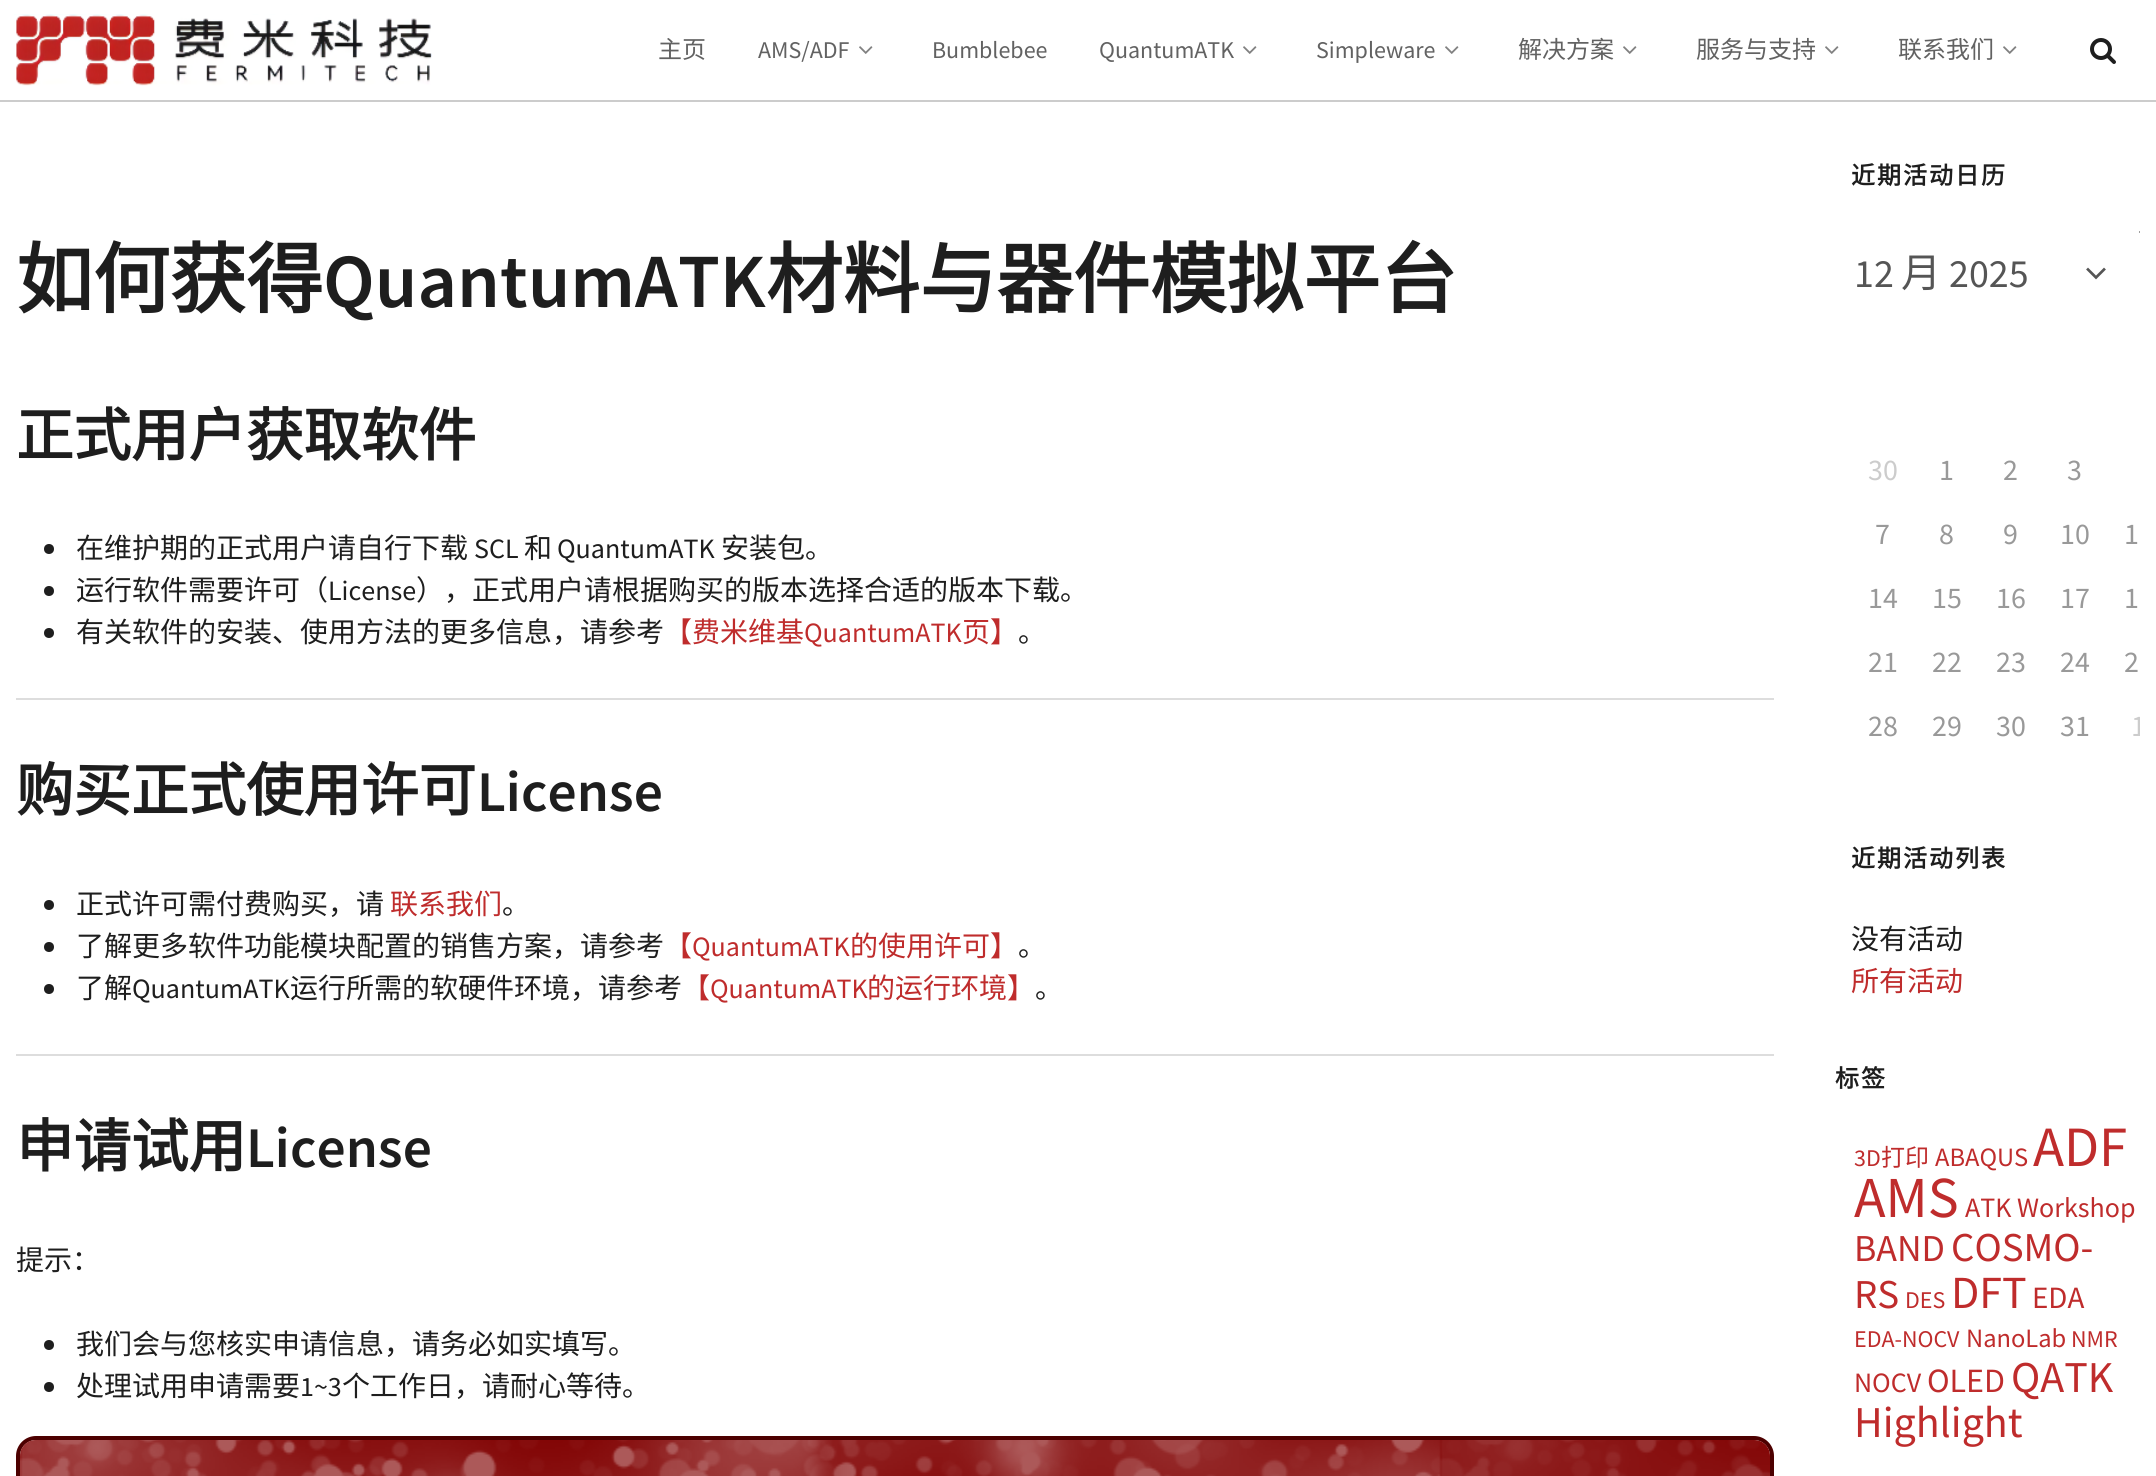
import math
import cairo

surface = cairo.ImageSurface(cairo.FORMAT_RGB24, 2156, 1476)
cr = cairo.Context(surface)
options = cairo.FontOptions()
options.set_hint_metrics(cairo.HINT_METRICS_OFF)
options.set_hint_style(cairo.HINT_STYLE_NONE)
cr.set_font_options(options)
cr.set_miter_limit(4)


def rgb(code):
    cr.set_source_rgb(*(v / 255 for v in bytes.fromhex(code[-6:])))


def tracked(x, y, s, letter, word):
    cr.move_to(x, y)
    for ch in s:
        cr.show_text(ch)
        cr.rel_move_to(letter + word * (ch == ' '), 0)


def rrect(x, y, w, h, r):
    cr.new_sub_path()
    for i, (u, v) in enumerate([(x + w - r, y + h - r), (x + r, y + h - r), (x + r, y + r), (x + w - r, y + r)]):
        cr.arc(u, v, r, i * math.pi / 2, (i + 1) * math.pi / 2)
    cr.close_path()


def image(path, x, y, w, h):
    cr.save()
    cr.set_source_surface(cairo.ImageSurface.create_from_png(path), x, y)
    cr.rectangle(x, y, w, h)
    cr.fill()
    cr.restore()


rgb("#ffffff")
cr.paint()
rgb("#cccccc")
cr.rectangle(0, 100, 2156, 2)
cr.fill()
image("img/1.png", 14, 14, 418, 72)
image("img/2.png", 859, 46, 14, 8)
image("img/2.png", 1243, 46, 14, 8)
image("img/2.png", 1445, 46, 14, 8)
image("img/2.png", 1623, 46, 14, 8)
image("img/2.png", 1825, 46, 14, 8)
image("img/2.png", 2003, 46, 14, 8)
image("img/3.png", 2090, 38, 26, 26)
rgb("#1e1e1e")
cr.arc(49, 549, 5, 0, 2 * math.pi)
cr.fill()
cr.arc(49, 591, 5, 0, 2 * math.pi)
cr.fill()
cr.arc(49, 633, 5, 0, 2 * math.pi)
cr.fill()
rgb("#dddddd")
cr.rectangle(16, 698, 1758, 2)
cr.fill()
rgb("#1e1e1e")
cr.arc(49, 905, 5, 0, 2 * math.pi)
cr.fill()
cr.arc(49, 947, 5, 0, 2 * math.pi)
cr.fill()
cr.arc(49, 989, 5, 0, 2 * math.pi)
cr.fill()
rgb("#dddddd")
cr.rectangle(16, 1054, 1758, 2)
cr.fill()
rgb("#1e1e1e")
cr.arc(49, 1345, 5, 0, 2 * math.pi)
cr.fill()
cr.arc(49, 1387, 5, 0, 2 * math.pi)
cr.fill()
rrect(18, 1438, 1754, 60, 18)
rgb("#4d0000")
cr.set_line_width(4)
cr.stroke()
rgb("#800000")
cr.new_path()
cr.move_to(36, 1440)
cr.line_to(1754, 1440)
cr.curve_to(1763, 1440, 1770, 1447, 1770, 1456)
cr.line_to(1770, 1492)
cr.line_to(20, 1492)
cr.line_to(20, 1456)
cr.curve_to(20, 1447, 27, 1440, 36, 1440)
cr.close_path()
cr.fill()
image("img/4.png", 20, 1440, 1750, 36)
cr.save()
cr.rectangle(2132, 210, 8, 44)
cr.clip()
cr.new_path()
cr.move_to(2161.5, 251)
cr.line_to(2141, 232)
cr.line_to(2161.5, 213)
rgb("#555555")
cr.set_line_width(2.9)
cr.set_line_cap(cairo.LINE_CAP_SQUARE)
cr.stroke()
cr.restore()
cr.new_path()
cr.move_to(2088, 269.5)
cr.line_to(2096, 277.5)
cr.line_to(2104, 269.5)
rgb("#555555")
cr.set_line_width(2.7)
cr.set_line_cap(cairo.LINE_CAP_SQUARE)
cr.stroke()
cr.select_font_face("Noto Sans CJK SC")
cr.set_font_size(24)
rgb("#626262")
cr.move_to(658, 58)
cr.show_text("主页")
cr.select_font_face("Source Sans Pro")
for x, y, s in [
    (758, 58, "AMS/ADF"),
    (932, 58, "Bumblebee"),
    (1099, 58, "QuantumATK"),
    (1316, 58, "Simpleware"),
]:
    cr.move_to(x, y)
    cr.show_text(s)
cr.select_font_face("Noto Sans CJK SC")
for x, y, s in [
    (1518, 58, "解决方案"),
    (1696, 58, "服务与支持"),
    (1898, 58, "联系我们"),
]:
    cr.move_to(x, y)
    cr.show_text(s)
cr.select_font_face("Noto Sans CJK SC", cairo.FONT_SLANT_NORMAL, cairo.FONT_WEIGHT_BOLD)
cr.set_font_size(76.75)
rgb("#1e1e1e")
cr.move_to(16, 307)
cr.show_text("如何获得")
cr.select_font_face("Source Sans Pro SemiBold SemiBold")
cr.move_to(323, 307)
cr.show_text("QuantumATK")
cr.select_font_face("Noto Sans CJK SC", cairo.FONT_SLANT_NORMAL, cairo.FONT_WEIGHT_BOLD)
cr.move_to(766, 307)
cr.show_text("材料与器件模拟平台")
cr.set_font_size(57.5)
cr.move_to(16, 456)
cr.show_text("正式用户获取软件")
cr.select_font_face("Noto Sans CJK SC")
cr.set_font_size(28)
cr.move_to(76, 558)
cr.show_text("在维护期的正式用户请自行下载")
cr.select_font_face("Source Sans Pro")
cr.move_to(474, 558)
cr.show_text("SCL")
cr.select_font_face("Noto Sans CJK SC")
cr.move_to(524, 558)
cr.show_text("和")
cr.select_font_face("Source Sans Pro")
cr.move_to(557, 558)
cr.show_text("QuantumATK")
cr.select_font_face("Noto Sans CJK SC")
cr.move_to(721, 558)
cr.show_text("安装包。")
cr.move_to(76, 600)
cr.show_text("运行软件需要许可（")
cr.select_font_face("Source Sans Pro")
cr.move_to(328, 600)
cr.show_text("License")
cr.select_font_face("Noto Sans CJK SC")
cr.move_to(416, 600)
cr.show_text("），正式用户请根据购买的版本选择合适的版本下载。")
cr.move_to(76, 642)
cr.show_text("有关软件的安装、使用方法的更多信息，请参考")
rgb("#bf2c2c")
cr.move_to(664, 642)
cr.show_text("【费米维基")
cr.select_font_face("Source Sans Pro")
cr.move_to(804, 642)
cr.show_text("QuantumATK")
cr.select_font_face("Noto Sans CJK SC")
cr.move_to(962, 642)
cr.show_text("页】")
rgb("#1e1e1e")
cr.move_to(1018, 642)
cr.show_text("。")
cr.select_font_face("Noto Sans CJK SC", cairo.FONT_SLANT_NORMAL, cairo.FONT_WEIGHT_BOLD)
cr.set_font_size(57.5)
cr.move_to(16, 811)
cr.show_text("购买正式使用许可")
cr.select_font_face("Source Sans Pro SemiBold SemiBold")
cr.move_to(477, 811)
cr.show_text("License")
cr.select_font_face("Noto Sans CJK SC")
cr.set_font_size(28)
cr.move_to(76, 914)
cr.show_text("正式许可需付费购买，请")
rgb("#bf2c2c")
cr.move_to(390, 914)
cr.show_text("联系我们")
rgb("#1e1e1e")
cr.move_to(502, 914)
cr.show_text("。")
cr.move_to(76, 956)
cr.show_text("了解更多软件功能模块配置的销售方案，请参考")
rgb("#bf2c2c")
cr.move_to(664, 956)
cr.show_text("【")
cr.select_font_face("Source Sans Pro")
cr.move_to(692, 956)
cr.show_text("QuantumATK")
cr.select_font_face("Noto Sans CJK SC")
cr.move_to(850, 956)
cr.show_text("的使用许可】")
rgb("#1e1e1e")
cr.move_to(1018, 956)
cr.show_text("。")
cr.move_to(76, 998)
cr.show_text("了解")
cr.select_font_face("Source Sans Pro")
cr.move_to(132, 998)
cr.show_text("QuantumATK")
cr.select_font_face("Noto Sans CJK SC")
cr.move_to(290, 998)
cr.show_text("运行所需的软硬件环境，请参考")
rgb("#bf2c2c")
cr.move_to(682, 998)
cr.show_text("【")
cr.select_font_face("Source Sans Pro")
cr.move_to(710, 998)
cr.show_text("QuantumATK")
cr.select_font_face("Noto Sans CJK SC")
cr.move_to(867, 998)
cr.show_text("的运行环境】")
rgb("#1e1e1e")
cr.move_to(1035, 998)
cr.show_text("。")
cr.select_font_face("Noto Sans CJK SC", cairo.FONT_SLANT_NORMAL, cairo.FONT_WEIGHT_BOLD)
cr.set_font_size(57.5)
cr.move_to(16, 1167)
cr.show_text("申请试用")
cr.select_font_face("Source Sans Pro SemiBold SemiBold")
cr.move_to(246, 1167)
cr.show_text("License")
cr.select_font_face("Noto Sans CJK SC")
cr.set_font_size(28)
for x, y, s in [
    (16, 1270, "提示："),
    (76, 1354, "我们会与您核实申请信息，请务必如实填写。"),
    (76, 1396, "处理试用申请需要"),
]:
    cr.move_to(x, y)
    cr.show_text(s)
cr.select_font_face("Source Sans Pro")
cr.move_to(300, 1396)
cr.show_text("1~3")
cr.select_font_face("Noto Sans CJK SC")
cr.move_to(342, 1396)
cr.show_text("个工作日，请耐心等待。")
cr.select_font_face("Noto Sans CJK SC", cairo.FONT_SLANT_NORMAL, cairo.FONT_WEIGHT_BOLD)
cr.set_font_size(24)
tracked(1851, 184, "近期活动日历", 2, 0)
cr.select_font_face("Source Sans Pro")
cr.set_font_size(40)
rgb("#555555")
cr.move_to(1854, 287)
cr.show_text("12")
cr.select_font_face("Noto Sans CJK SC")
cr.move_to(1901, 287)
cr.show_text("月")
cr.select_font_face("Source Sans Pro")
cr.move_to(1949, 287)
cr.show_text("2025")
cr.set_font_size(30)
rgb("#cccccc")
cr.move_to(1868, 480)
cr.show_text("30")
rgb("#999999")
for x, y, s in [
    (1939, 480, "1"),
    (2003, 480, "2"),
    (2067, 480, "3"),
    (1875, 544, "7"),
    (1939, 544, "8"),
    (2003, 544, "9"),
    (2060, 544, "10"),
    (2124, 544, "1"),
    (1868, 608, "14"),
    (1932, 608, "15"),
    (1996, 608, "16"),
    (2060, 608, "17"),
    (2124, 608, "1"),
    (1868, 672, "21"),
    (1932, 672, "22"),
    (1996, 672, "23"),
    (2060, 672, "24"),
    (2124, 672, "2"),
    (1868, 736, "28"),
    (1932, 736, "29"),
    (1996, 736, "30"),
    (2060, 736, "31"),
]:
    cr.move_to(x, y)
    cr.show_text(s)
cr.save()
cr.rectangle(1850, 156, 290, 644)
cr.clip()
rgb("#cccccc")
cr.move_to(2131, 736)
cr.show_text("1")
cr.restore()
cr.select_font_face("Noto Sans CJK SC", cairo.FONT_SLANT_NORMAL, cairo.FONT_WEIGHT_BOLD)
cr.set_font_size(24)
rgb("#1e1e1e")
tracked(1851, 867, "近期活动列表", 2, 0)
cr.select_font_face("Noto Sans CJK SC")
cr.set_font_size(28)
cr.move_to(1851, 949)
cr.show_text("没有活动")
rgb("#bf2c2c")
cr.move_to(1851, 991)
cr.show_text("所有活动")
cr.select_font_face("Noto Sans CJK SC", cairo.FONT_SLANT_NORMAL, cairo.FONT_WEIGHT_BOLD)
cr.set_font_size(24)
rgb("#1e1e1e")
tracked(1835, 1087, "标签", 2, 0)
cr.select_font_face("Source Sans Pro")
rgb("#bf2c2c")
cr.move_to(1854, 1166)
cr.show_text("3D")
cr.select_font_face("Noto Sans CJK SC")
cr.move_to(1881, 1166)
cr.show_text("打印")
cr.select_font_face("Source Sans Pro")
cr.set_font_size(26.5)
cr.move_to(1935, 1166)
cr.show_text("ABAQUS")
cr.set_font_size(57)
cr.move_to(2033, 1166)
cr.show_text("ADF")
cr.set_font_size(58)
cr.move_to(1854, 1217)
cr.show_text("AMS")
cr.set_font_size(28)
cr.move_to(1965, 1217)
cr.show_text("ATK Workshop")
cr.set_font_size(38)
cr.move_to(1854, 1261)
cr.show_text("BAND")
cr.set_font_size(41)
cr.move_to(1951, 1261)
cr.show_text("COSMO-")
cr.move_to(1854, 1308)
cr.show_text("RS")
cr.set_font_size(24)
cr.move_to(1905, 1308)
cr.show_text("DES")
cr.set_font_size(46)
cr.move_to(1951, 1308)
cr.show_text("DFT")
cr.set_font_size(31)
cr.move_to(2032, 1308)
cr.show_text("EDA")
cr.set_font_size(24)
cr.move_to(1854, 1347)
cr.show_text("EDA-NOCV")
cr.set_font_size(26.5)
cr.move_to(1966, 1347)
cr.show_text("NanoLab")
cr.set_font_size(24)
cr.move_to(2071, 1347)
cr.show_text("NMR")
cr.set_font_size(28)
cr.move_to(1854, 1392)
cr.show_text("NOCV")
cr.set_font_size(34)
cr.move_to(1927, 1392)
cr.show_text("OLED")
cr.set_font_size(44)
cr.move_to(2011, 1392)
cr.show_text("QATK")
cr.move_to(1854, 1437)
cr.show_text("Highlight")
surface.write_to_png("page.png")
